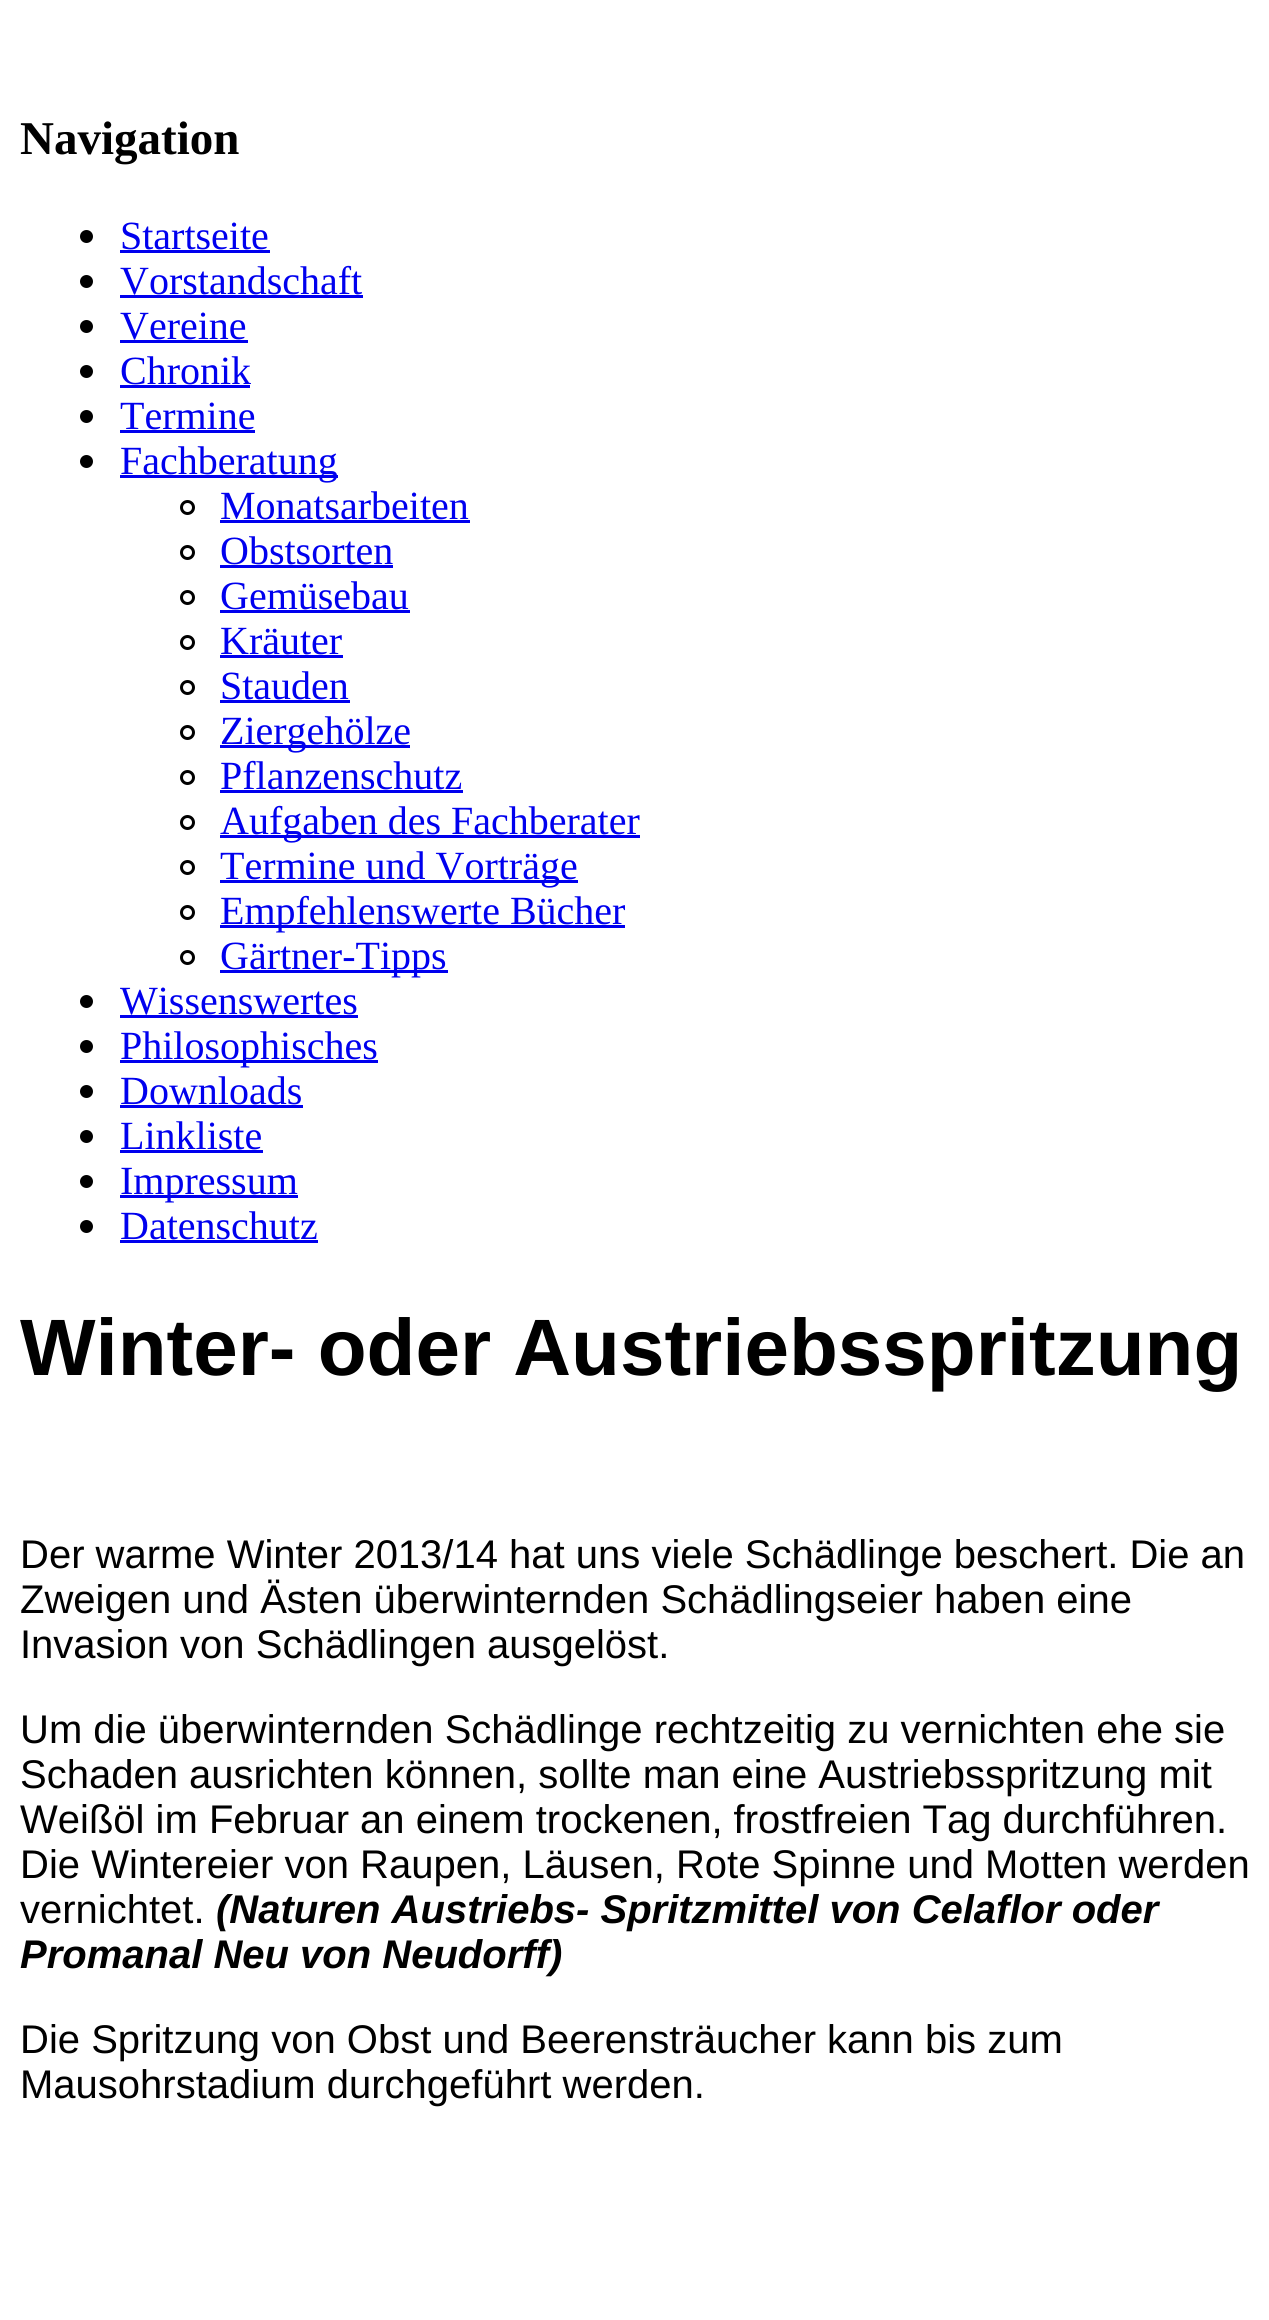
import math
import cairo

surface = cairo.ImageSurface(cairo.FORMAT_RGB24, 1269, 2320)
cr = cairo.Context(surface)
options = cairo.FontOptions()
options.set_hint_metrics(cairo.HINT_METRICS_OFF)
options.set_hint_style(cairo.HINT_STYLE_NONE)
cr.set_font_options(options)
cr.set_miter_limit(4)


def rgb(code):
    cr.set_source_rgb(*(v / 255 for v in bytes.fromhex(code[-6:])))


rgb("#ffffff")
cr.paint()
rgb("#000000")
cr.arc(86.5, 236.5, 6.5, 0, 2 * math.pi)
cr.fill()
rgb("#0000ee")
cr.rectangle(120, 250, 150, 3)
cr.fill()
rgb("#000000")
cr.arc(86.5, 281.5, 6.5, 0, 2 * math.pi)
cr.fill()
rgb("#0000ee")
cr.rectangle(120, 295, 243, 3)
cr.fill()
rgb("#000000")
cr.arc(86.5, 326.5, 6.5, 0, 2 * math.pi)
cr.fill()
rgb("#0000ee")
cr.rectangle(120, 340, 128, 3)
cr.fill()
rgb("#000000")
cr.arc(86.5, 371.5, 6.5, 0, 2 * math.pi)
cr.fill()
rgb("#0000ee")
cr.rectangle(120, 385, 130, 3)
cr.fill()
rgb("#000000")
cr.arc(86.5, 416.5, 6.5, 0, 2 * math.pi)
cr.fill()
rgb("#0000ee")
cr.rectangle(120, 430, 135, 3)
cr.fill()
rgb("#000000")
cr.arc(86.5, 461.5, 6.5, 0, 2 * math.pi)
cr.fill()
rgb("#0000ee")
cr.rectangle(120, 475, 218, 3)
cr.fill()
cr.arc(187.5, 507.5, 6, 0, 2 * math.pi)
rgb("#000000")
cr.set_line_width(3)
cr.stroke()
rgb("#0000ee")
cr.rectangle(220, 520, 250, 3)
cr.fill()
cr.arc(187.5, 552.5, 6, 0, 2 * math.pi)
rgb("#000000")
cr.stroke()
rgb("#0000ee")
cr.rectangle(220, 565, 173, 3)
cr.fill()
cr.arc(187.5, 597.5, 6, 0, 2 * math.pi)
rgb("#000000")
cr.stroke()
rgb("#0000ee")
cr.rectangle(220, 610, 190, 3)
cr.fill()
cr.arc(187.5, 642.5, 6, 0, 2 * math.pi)
rgb("#000000")
cr.stroke()
rgb("#0000ee")
cr.rectangle(220, 655, 123, 3)
cr.fill()
cr.arc(187.5, 687.5, 6, 0, 2 * math.pi)
rgb("#000000")
cr.stroke()
rgb("#0000ee")
cr.rectangle(220, 700, 130, 3)
cr.fill()
cr.arc(187.5, 732.5, 6, 0, 2 * math.pi)
rgb("#000000")
cr.stroke()
rgb("#0000ee")
cr.rectangle(220, 745, 190, 3)
cr.fill()
cr.arc(187.5, 777.5, 6, 0, 2 * math.pi)
rgb("#000000")
cr.stroke()
rgb("#0000ee")
cr.rectangle(220, 790, 243, 3)
cr.fill()
cr.arc(187.5, 822.5, 6, 0, 2 * math.pi)
rgb("#000000")
cr.stroke()
rgb("#0000ee")
cr.rectangle(220, 835, 420, 3)
cr.fill()
cr.arc(187.5, 867.5, 6, 0, 2 * math.pi)
rgb("#000000")
cr.stroke()
rgb("#0000ee")
cr.rectangle(220, 880, 358, 3)
cr.fill()
cr.arc(187.5, 912.5, 6, 0, 2 * math.pi)
rgb("#000000")
cr.stroke()
rgb("#0000ee")
cr.rectangle(220, 925, 405, 3)
cr.fill()
cr.arc(187.5, 957.5, 6, 0, 2 * math.pi)
rgb("#000000")
cr.stroke()
rgb("#0000ee")
cr.rectangle(220, 970, 228, 3)
cr.fill()
rgb("#000000")
cr.arc(86.5, 1001.5, 6.5, 0, 2 * math.pi)
cr.fill()
rgb("#0000ee")
cr.rectangle(120, 1015, 238, 3)
cr.fill()
rgb("#000000")
cr.arc(86.5, 1046.5, 6.5, 0, 2 * math.pi)
cr.fill()
rgb("#0000ee")
cr.rectangle(120, 1060, 258, 3)
cr.fill()
rgb("#000000")
cr.arc(86.5, 1091.5, 6.5, 0, 2 * math.pi)
cr.fill()
rgb("#0000ee")
cr.rectangle(120, 1105, 183, 3)
cr.fill()
rgb("#000000")
cr.arc(86.5, 1136.5, 6.5, 0, 2 * math.pi)
cr.fill()
rgb("#0000ee")
cr.rectangle(120, 1150, 143, 3)
cr.fill()
rgb("#000000")
cr.arc(86.5, 1181.5, 6.5, 0, 2 * math.pi)
cr.fill()
rgb("#0000ee")
cr.rectangle(120, 1195, 178, 3)
cr.fill()
rgb("#000000")
cr.arc(86.5, 1226.5, 6.5, 0, 2 * math.pi)
cr.fill()
rgb("#0000ee")
cr.rectangle(120, 1240, 198, 3)
cr.fill()
cr.select_font_face("Liberation Serif", cairo.FONT_SLANT_NORMAL, cairo.FONT_WEIGHT_BOLD)
cr.set_font_size(47)
rgb("#000000")
cr.move_to(20, 154)
cr.show_text("Navigation")
cr.select_font_face("Liberation Serif")
cr.set_font_size(40)
rgb("#0000ee")
for x, y, s in [
    (120, 249, "Startseite"),
    (120, 294, "Vorstandschaft"),
    (120, 339, "Vereine"),
    (120, 384, "Chronik"),
    (120, 429, "Termine"),
    (120, 474, "Fachberatung"),
    (220, 519, "Monatsarbeiten"),
    (220, 564, "Obstsorten"),
    (220, 609, "Gemüsebau"),
    (220, 654, "Kräuter"),
    (220, 699, "Stauden"),
    (220, 744, "Ziergehölze"),
    (220, 789, "Pflanzenschutz"),
    (220, 834, "Aufgaben des Fachberater"),
    (220, 879, "Termine und Vorträge"),
    (220, 924, "Empfehlenswerte Bücher"),
    (220, 969, "Gärtner-Tipps"),
    (120, 1014, "Wissenswertes"),
    (120, 1059, "Philosophisches"),
    (120, 1104, "Downloads"),
    (120, 1149, "Linkliste"),
    (120, 1194, "Impressum"),
    (120, 1239, "Datenschutz"),
]:
    cr.move_to(x, y)
    cr.show_text(s)
cr.select_font_face("Liberation Sans", cairo.FONT_SLANT_NORMAL, cairo.FONT_WEIGHT_BOLD)
cr.set_font_size(80)
rgb("#000000")
cr.move_to(20, 1375)
cr.show_text("Winter- oder Austriebsspritzung")
cr.select_font_face("Liberation Sans")
cr.set_font_size(40)
for x, y, s in [
    (20, 1568, "Der warme Winter 2013/14 hat uns viele Schädlinge beschert. Die an"),
    (20, 1613, "Zweigen und Ästen überwinternden Schädlingseier haben eine"),
    (20, 1658, "Invasion von Schädlingen ausgelöst."),
    (20, 1743, "Um die überwinternden Schädlinge rechtzeitig zu vernichten ehe sie"),
    (20, 1788, "Schaden ausrichten können, sollte man eine Austriebsspritzung mit"),
    (20, 1833, "Weißöl im Februar an einem trockenen, frostfreien Tag durchführen."),
    (20, 1878, "Die Wintereier von Raupen, Läusen, Rote Spinne und Motten werden"),
    (20, 1923, "vernichtet."),
]:
    cr.move_to(x, y)
    cr.show_text(s)
cr.select_font_face("Liberation Sans", cairo.FONT_SLANT_ITALIC, cairo.FONT_WEIGHT_BOLD)
cr.move_to(216, 1923)
cr.show_text("(Naturen Austriebs- Spritzmittel von Celaflor oder")
cr.move_to(20, 1968)
cr.show_text("Promanal Neu von Neudorff)")
cr.select_font_face("Liberation Sans")
cr.move_to(20, 2053)
cr.show_text("Die Spritzung von Obst und Beerensträucher kann bis zum")
cr.move_to(20, 2098)
cr.show_text("Mausohrstadium durchgeführt werden.")
surface.write_to_png("page.png")
